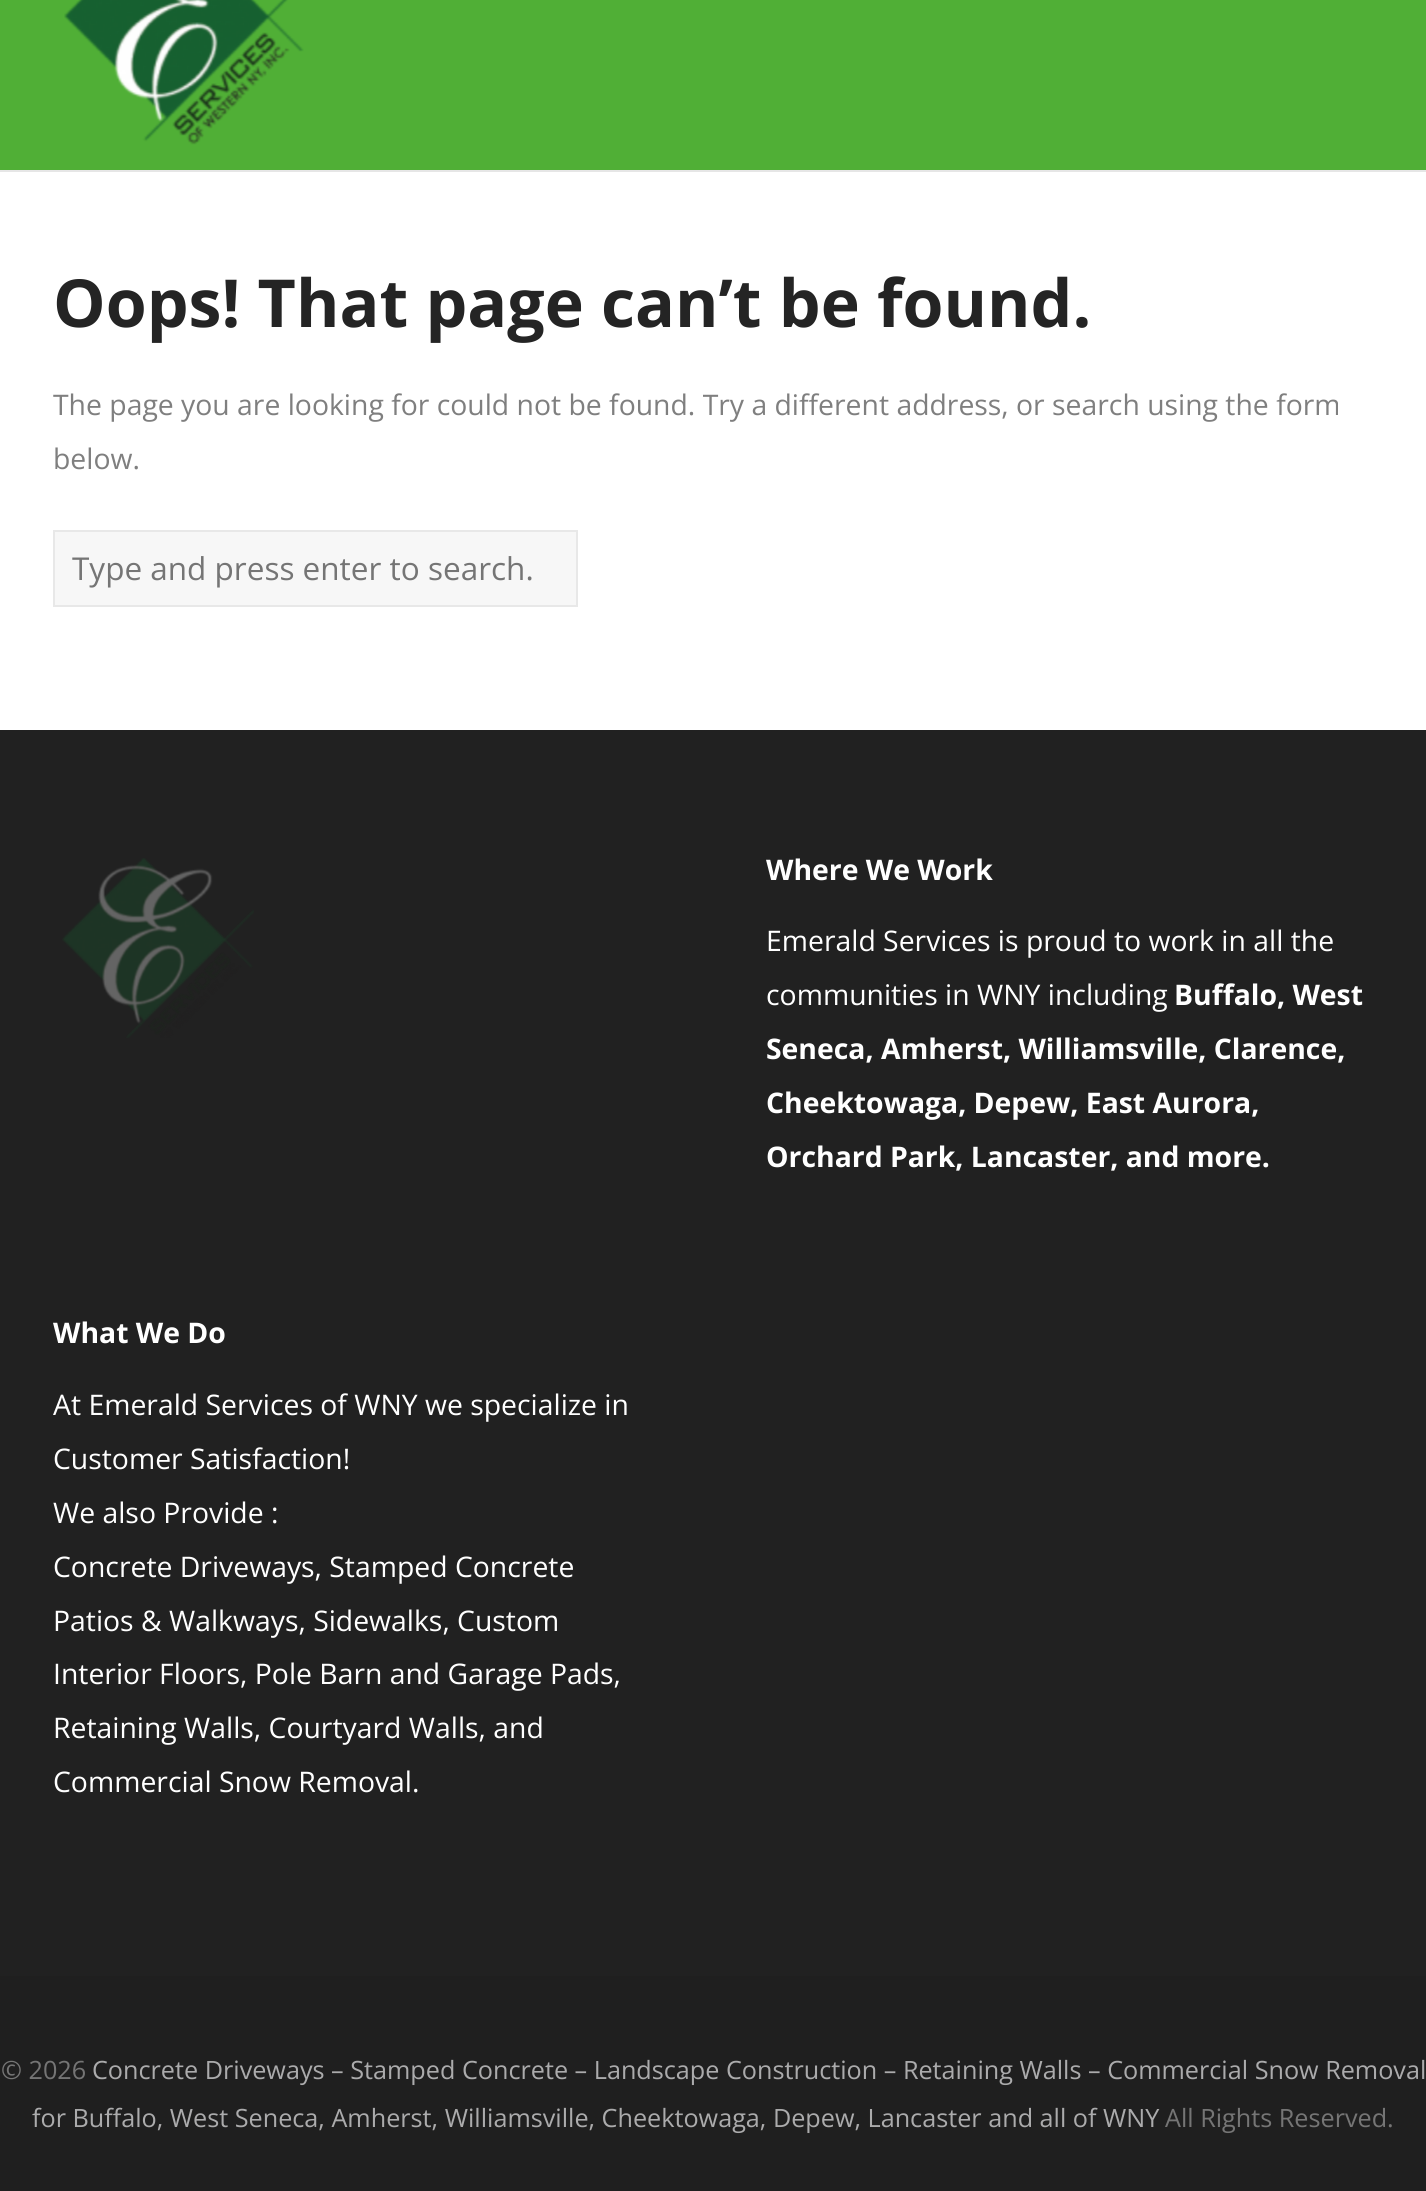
import math
import cairo

surface = cairo.ImageSurface(cairo.FORMAT_RGB24, 1426, 2191)
cr = cairo.Context(surface)
options = cairo.FontOptions()
options.set_hint_metrics(cairo.HINT_METRICS_OFF)
options.set_hint_style(cairo.HINT_STYLE_NONE)
cr.set_font_options(options)
cr.set_miter_limit(4)


def rgb(code):
    cr.set_source_rgb(*(v / 255 for v in bytes.fromhex(code[-6:])))


def image(path, x, y, w, h):
    cr.save()
    cr.set_source_surface(cairo.ImageSurface.create_from_png(path), x, y)
    cr.rectangle(x, y, w, h)
    cr.fill()
    cr.restore()


rgb("#ffffff")
cr.paint()
rgb("#e6e6e6")
cr.rectangle(0, 170, 1426, 2)
cr.fill()
rgb("#50af36")
cr.rectangle(0, 0, 1426, 170)
cr.fill()
image("img/1.png", 64, 0, 240, 145)
rgb("#f7f7f7")
cr.rectangle(54, 531, 523, 75)
cr.fill_preserve()
rgb("#e8e8e8")
cr.stroke()
rgb("#212121")
cr.rectangle(0, 730, 1426, 1246)
cr.fill()
image("img/2.png", 62, 858, 192, 180)
rgb("#1f1f1f")
cr.rectangle(0, 1976, 1426, 215)
cr.fill()
cr.select_font_face("Open Sans", cairo.FONT_SLANT_NORMAL, cairo.FONT_WEIGHT_BOLD)
cr.set_font_size(66.2)
rgb("#242424")
cr.move_to(53, 327)
cr.show_text("Oops! That page can’t be found.")
cr.select_font_face("Open Sans")
cr.set_font_size(28.35)
rgb("#7f7f7f")
cr.move_to(53, 415)
cr.show_text("The page you are looking for could not be found. Try a different address, or search using the form")
cr.move_to(53, 469)
cr.show_text("below.")
cr.set_font_size(31.5)
rgb("#757575")
cr.move_to(72, 580)
cr.show_text("Type and press enter to search.")
cr.select_font_face("Open Sans", cairo.FONT_SLANT_NORMAL, cairo.FONT_WEIGHT_BOLD)
cr.set_font_size(28.35)
rgb("#ffffff")
cr.move_to(766, 880)
cr.show_text("Where We Work")
cr.select_font_face("Open Sans")
cr.move_to(766, 951)
cr.show_text("Emerald Services is proud to work in all the")
cr.move_to(766, 1005)
cr.show_text("communities in WNY including")
cr.select_font_face("Open Sans", cairo.FONT_SLANT_NORMAL, cairo.FONT_WEIGHT_BOLD)
for x, y, s in [
    (1174, 1005, "Buffalo, West"),
    (766, 1059, "Seneca, Amherst, Williamsville, Clarence,"),
    (766, 1113, "Cheektowaga, Depew, East Aurora,"),
    (766, 1167, "Orchard Park, Lancaster, and more."),
    (53, 1343, "What We Do"),
]:
    cr.move_to(x, y)
    cr.show_text(s)
cr.select_font_face("Open Sans")
for x, y, s in [
    (53, 1415, "At Emerald Services of WNY we specialize in"),
    (53, 1469, "Customer Satisfaction!"),
    (53, 1523, "We also Provide :"),
    (53, 1577, "Concrete Driveways, Stamped Concrete"),
    (53, 1631, "Patios & Walkways, Sidewalks, Custom"),
    (53, 1684, "Interior Floors, Pole Barn and Garage Pads,"),
    (53, 1738, "Retaining Walls, Courtyard Walls, and"),
    (53, 1792, "Commercial Snow Removal."),
]:
    cr.move_to(x, y)
    cr.show_text(s)
cr.set_font_size(25.2)
rgb("#757575")
cr.move_to(1, 2079)
cr.show_text("© 2026")
rgb("#ababac")
cr.move_to(92, 2079)
cr.show_text("Concrete Driveways – Stamped Concrete – Landscape Construction – Retaining Walls – Commercial Snow Removal")
cr.move_to(32, 2127)
cr.show_text("for Buffalo, West Seneca, Amherst, Williamsville, Cheektowaga, Depew, Lancaster and all of WNY")
rgb("#757575")
cr.move_to(1165, 2127)
cr.show_text("All Rights Reserved.")
surface.write_to_png("page.png")
